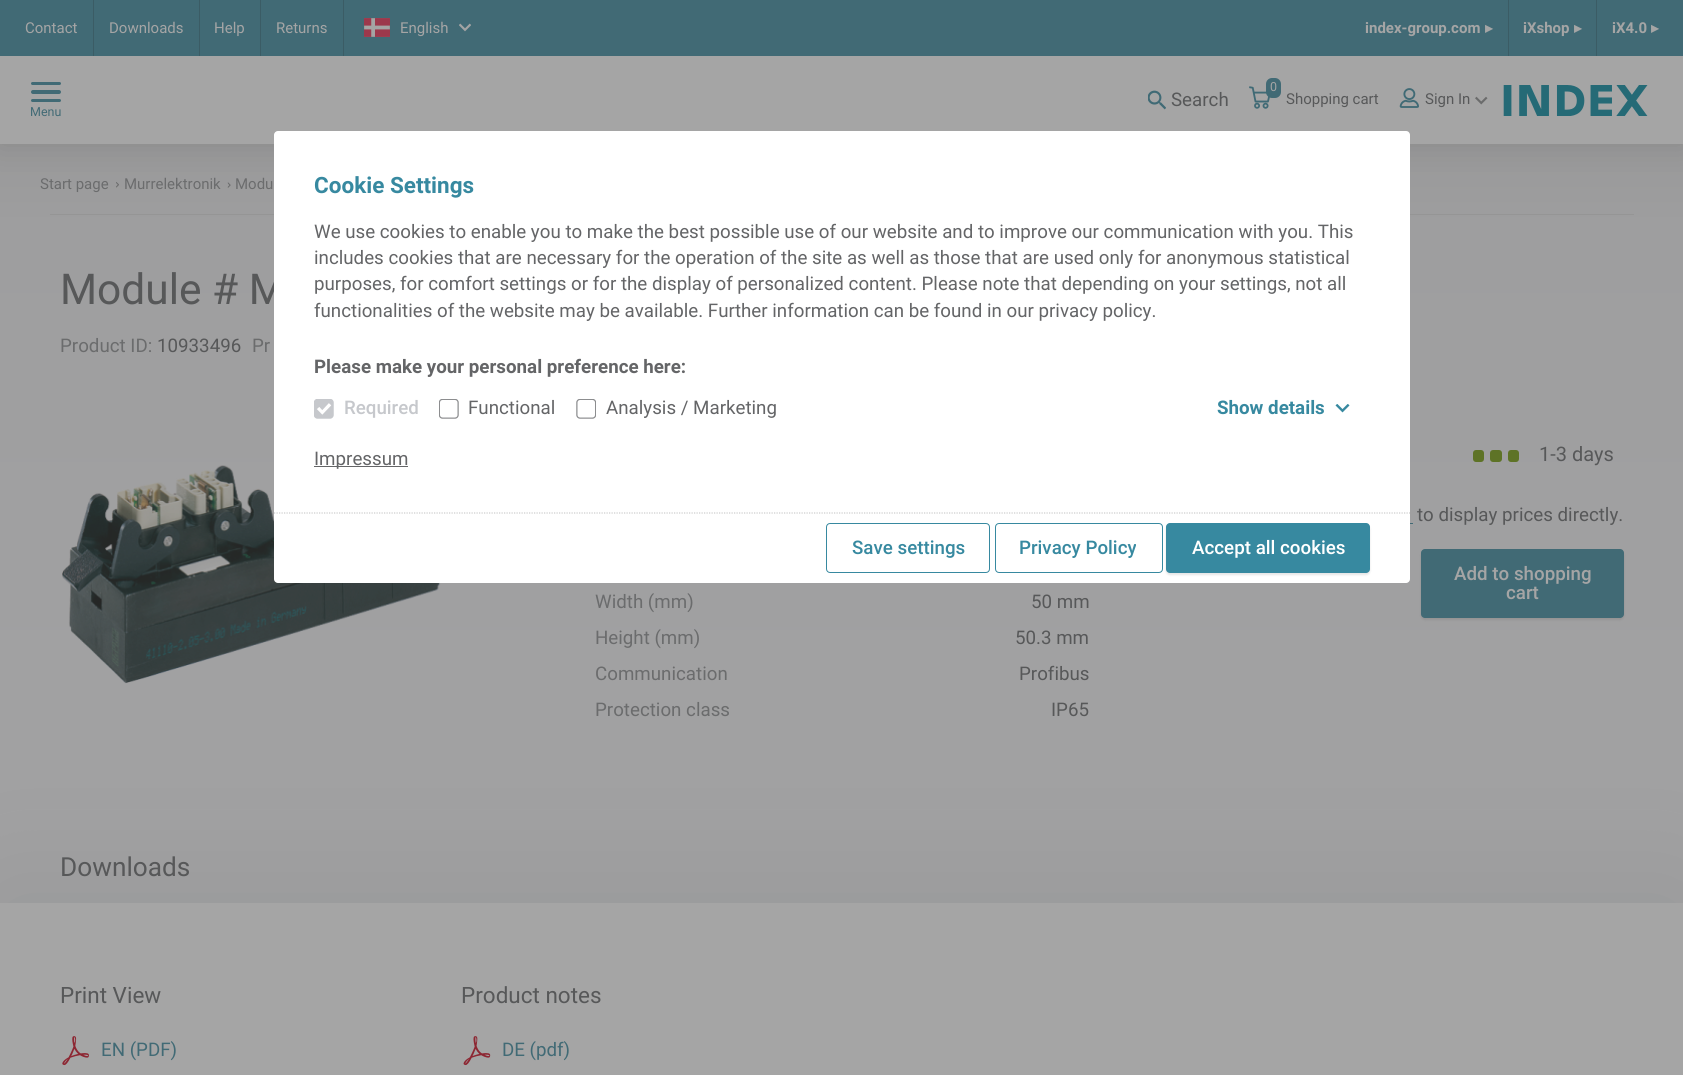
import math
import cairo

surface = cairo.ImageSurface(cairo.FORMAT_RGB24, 1683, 1075)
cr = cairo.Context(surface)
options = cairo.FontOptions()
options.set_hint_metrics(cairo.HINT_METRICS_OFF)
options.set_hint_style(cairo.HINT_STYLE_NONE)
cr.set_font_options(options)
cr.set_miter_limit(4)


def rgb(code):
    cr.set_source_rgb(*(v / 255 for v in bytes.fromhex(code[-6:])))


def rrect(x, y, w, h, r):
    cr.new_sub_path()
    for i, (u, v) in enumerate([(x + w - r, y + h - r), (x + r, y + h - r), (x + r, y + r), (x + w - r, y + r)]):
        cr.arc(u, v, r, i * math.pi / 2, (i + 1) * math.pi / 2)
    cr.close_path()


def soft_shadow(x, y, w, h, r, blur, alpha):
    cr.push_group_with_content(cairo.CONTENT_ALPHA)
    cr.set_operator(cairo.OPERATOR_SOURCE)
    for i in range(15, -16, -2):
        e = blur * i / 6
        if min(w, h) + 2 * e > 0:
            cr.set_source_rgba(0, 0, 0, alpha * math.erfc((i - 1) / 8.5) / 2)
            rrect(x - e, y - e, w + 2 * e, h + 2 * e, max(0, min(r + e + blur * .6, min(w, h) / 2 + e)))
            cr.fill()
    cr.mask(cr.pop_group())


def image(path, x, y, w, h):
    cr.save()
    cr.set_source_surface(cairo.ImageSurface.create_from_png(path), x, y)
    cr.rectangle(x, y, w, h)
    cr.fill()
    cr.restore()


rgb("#ffffff")
cr.paint()
gradient = cairo.LinearGradient(842, 0, 842, 1075)
gradient.add_color_stop_rgba(0, 0.561, 0.561, 0.561, 1)
gradient.add_color_stop_rgba(0.21, 0.62, 0.62, 0.624, 1)
gradient.add_color_stop_rgba(0.65, 0.631, 0.631, 0.635, 1)
gradient.add_color_stop_rgba(1, 0.631, 0.631, 0.635, 1)
cr.set_source(gradient)
cr.rectangle(0, 144, 1683, 759)
cr.fill()
image("img/8.png", 116, 182, 3, 6)
image("img/9.png", 227, 182, 4, 6)
rgb("#252525")
soft_shadow(0, 0, 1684, 144, 0, 15.5, 0.15)
for x, y, w, h, color in [
    (0, 56, 1683, 88, "#a5a5a5"),
    (0, 0, 1683, 56, "#416a75"),
    (93, 0, 1, 56, "#3b5c65"),
    (199, 0, 1, 56, "#3b5c65"),
    (260, 0, 1, 56, "#3b5c65"),
    (343, 0, 1, 56, "#3b5c65"),
]:
    rgb(color)
    cr.rectangle(x, y, w, h)
    cr.fill()
image("img/1.png", 364, 18, 26, 19)
image("img/2.png", 459, 23, 12, 9)
cr.rectangle(1508, 0, 1, 56)
cr.fill()
cr.rectangle(1596, 0, 1, 56)
cr.fill()
image("img/3.png", 1148, 90, 18, 20)
rgb("#416a75")
rrect(1266, 78, 15, 20, 6)
cr.fill()
image("img/4.png", 1249, 86, 21, 23)
image("img/5.png", 1399, 88, 20, 20)
image("img/6.png", 1475, 96, 13, 9)
image("img/7.png", 1503, 85, 145, 31)
rrect(31, 82, 30, 3, 1.5)
cr.fill()
rrect(31, 90, 30, 4, 2)
cr.fill()
rrect(31, 99, 30, 3, 1.5)
cr.fill()
rgb("#959595")
cr.rectangle(50, 214, 1584, 1)
cr.fill()
image("img/10.png", 62, 465, 379, 219)
rgb("#5e7326")
rrect(1473, 450, 11, 12, 3)
cr.fill()
rrect(1490, 450, 12, 12, 3)
cr.fill()
rrect(1508, 450, 11, 12, 3)
cr.fill()
rgb("#416a75")
cr.rectangle(1410, 523, 3, 1)
cr.fill()
rgb("#252525")
soft_shadow(1421, 551, 203, 69, 4, 1, 0.1)
rgb("#416a75")
rrect(1421, 549, 203, 69, 4)
cr.fill()
rgb("#575859")
soft_shadow(0, 903, 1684, 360, 0, 62.5, 0.15)
rgb("#a5a5a5")
cr.rectangle(0, 903, 1683, 172)
cr.fill()
image("img/11.png", 62, 1036, 27, 30)
image("img/12.png", 463, 1036, 28, 30)
cr.select_font_face("Roboto")
cr.set_font_size(15)
for x, y, s in [
    (25, 33, "Contact"),
    (109, 33, "Downloads"),
    (214, 33, "Help"),
    (276, 33, "Returns"),
    (400, 33, "English"),
]:
    cr.move_to(x, y)
    cr.show_text(s)
cr.select_font_face("Roboto", cairo.FONT_SLANT_NORMAL, cairo.FONT_WEIGHT_BOLD)
cr.move_to(1365, 33)
cr.show_text("index-group.com")
cr.select_font_face("DejaVu Sans", cairo.FONT_SLANT_NORMAL, cairo.FONT_WEIGHT_BOLD)
cr.move_to(1485, 33)
cr.show_text("▸")
cr.select_font_face("Roboto", cairo.FONT_SLANT_NORMAL, cairo.FONT_WEIGHT_BOLD)
cr.move_to(1523, 33)
cr.show_text("iXshop")
cr.select_font_face("DejaVu Sans", cairo.FONT_SLANT_NORMAL, cairo.FONT_WEIGHT_BOLD)
cr.move_to(1574, 33)
cr.show_text("▸")
cr.select_font_face("Roboto", cairo.FONT_SLANT_NORMAL, cairo.FONT_WEIGHT_BOLD)
cr.move_to(1612, 33)
cr.show_text("iX4.0")
cr.select_font_face("DejaVu Sans", cairo.FONT_SLANT_NORMAL, cairo.FONT_WEIGHT_BOLD)
cr.move_to(1651, 33)
cr.show_text("▸")
cr.select_font_face("Roboto")
cr.set_font_size(18.75)
rgb("#575859")
cr.move_to(1171, 106)
cr.show_text("Search")
cr.set_font_size(12.5)
rgb("#a5a5a5")
cr.move_to(1270, 91)
cr.show_text("0")
cr.set_font_size(15)
rgb("#575859")
cr.move_to(1286, 104)
cr.show_text("Shopping cart")
cr.move_to(1425, 104)
cr.show_text("Sign In")
cr.set_font_size(12.5)
rgb("#416a75")
cr.move_to(30, 116)
cr.show_text("Menu")
cr.set_font_size(15)
rgb("#6b6c6d")
for x, y, s in [
    (40, 189, "Start page"),
    (124, 189, "Murrelektronik"),
    (235, 189, "Modu"),
]:
    cr.move_to(x, y)
    cr.show_text(s)
cr.set_font_size(42.5)
rgb("#575859")
cr.move_to(60, 304)
cr.show_text("Module # M")
cr.set_font_size(18.75)
rgb("#6b6c6d")
cr.move_to(60, 352)
cr.show_text("Product ID:")
rgb("#575859")
cr.move_to(157, 352)
cr.show_text("10933496")
rgb("#6b6c6d")
cr.move_to(252, 352)
cr.show_text("Pr")
cr.set_font_size(20)
rgb("#575859")
cr.move_to(1539, 461)
cr.show_text("1-3 days")
cr.set_font_size(18.75)
cr.move_to(1417, 521)
cr.show_text("to display prices directly.")
cr.select_font_face("Roboto Medium")
rgb("#a5a5a5")
cr.move_to(1454, 580)
cr.show_text("Add to shopping")
cr.move_to(1506, 599)
cr.show_text("cart")
cr.select_font_face("Roboto")
rgb("#6b6c6d")
cr.move_to(595, 608)
cr.show_text("Width (mm)")
rgb("#575859")
cr.move_to(1031, 608)
cr.show_text("50 mm")
rgb("#6b6c6d")
cr.move_to(595, 644)
cr.show_text("Height (mm)")
rgb("#575859")
cr.move_to(1015, 644)
cr.show_text("50.3 mm")
rgb("#6b6c6d")
cr.move_to(595, 680)
cr.show_text("Communication")
rgb("#575859")
cr.move_to(1019, 680)
cr.show_text("Profibus")
rgb("#6b6c6d")
cr.move_to(595, 716)
cr.show_text("Protection class")
rgb("#575859")
cr.move_to(1051, 716)
cr.show_text("IP65")
cr.set_font_size(26.25)
cr.move_to(60, 876)
cr.show_text("Downloads")
cr.set_font_size(22.5)
cr.move_to(60, 1003)
cr.show_text("Print View")
cr.set_font_size(18.75)
rgb("#416a75")
cr.move_to(101, 1056)
cr.show_text("EN (PDF)")
cr.set_font_size(22.5)
rgb("#575859")
cr.move_to(461, 1003)
cr.show_text("Product notes")
cr.set_font_size(18.75)
rgb("#416a75")
cr.move_to(502, 1056)
cr.show_text("DE (pdf)")
rgb("#ffffff")
rrect(274, 131, 1136, 452, 4)
cr.fill()
cr.new_path()
cr.move_to(274, 513)
cr.line_to(1410, 513)
rgb("#cccccc")
cr.set_line_width(1.2)
cr.set_dash([1.25, 1.25])
cr.stroke()
cr.select_font_face("Roboto", cairo.FONT_SLANT_NORMAL, cairo.FONT_WEIGHT_BOLD)
cr.set_font_size(22.5)
rgb("#3789a0")
cr.move_to(314, 193)
cr.show_text("Cookie Settings")
cr.select_font_face("Roboto")
cr.set_font_size(18.75)
rgb("#646567")
for x, y, s in [
    (314, 238, "We use cookies to enable you to make the best possible use of our website and to improve our communication with you. This"),
    (314, 264, "includes cookies that are necessary for the operation of the site as well as those that are used only for anonymous statistical"),
    (314, 290, "purposes, for comfort settings or for the display of personalized content. Please note that depending on your settings, not all"),
    (314, 317, "functionalities of the website may be available. Further information can be found in our privacy policy."),
]:
    cr.move_to(x, y)
    cr.show_text(s)
cr.select_font_face("Roboto", cairo.FONT_SLANT_NORMAL, cairo.FONT_WEIGHT_BOLD)
cr.move_to(314, 373)
cr.show_text("Please make your personal preference here:")
image("img/13.png", 314, 399, 20, 20)
cr.select_font_face("Roboto Medium")
rgb("#c6c8cc")
cr.move_to(344, 414)
cr.show_text("Required")
image("img/14.png", 439, 399, 20, 20)
cr.select_font_face("Roboto")
rgb("#646567")
cr.move_to(468, 414)
cr.show_text("Functional")
image("img/15.png", 576, 399, 20, 20)
cr.move_to(606, 414)
cr.show_text("Analysis / Marketing")
cr.select_font_face("Roboto", cairo.FONT_SLANT_NORMAL, cairo.FONT_WEIGHT_BOLD)
rgb("#3789a0")
cr.move_to(1217, 414)
cr.show_text("Show details")
image("img/16.png", 1335, 404, 15, 9)
rgb("#646567")
cr.rectangle(314, 466, 94, 1)
cr.fill()
cr.select_font_face("Roboto")
cr.move_to(314, 465)
cr.show_text("Impressum")
rrect(826.5, 523.5, 163, 49, 3.5)
rgb("#3789a0")
cr.set_line_width(1)
cr.set_dash([])
cr.stroke()
cr.select_font_face("Roboto Medium")
cr.move_to(852, 554)
cr.show_text("Save settings")
rrect(995.5, 523.5, 167, 49, 3.5)
cr.stroke()
cr.move_to(1019, 554)
cr.show_text("Privacy Policy")
rgb("#000000")
soft_shadow(1166, 525, 204, 50, 4, 1, 0.1)
rgb("#3789a0")
rrect(1166, 523, 204, 50, 4)
cr.fill()
rgb("#ffffff")
cr.move_to(1192, 554)
cr.show_text("Accept all cookies")
surface.write_to_png("page.png")
